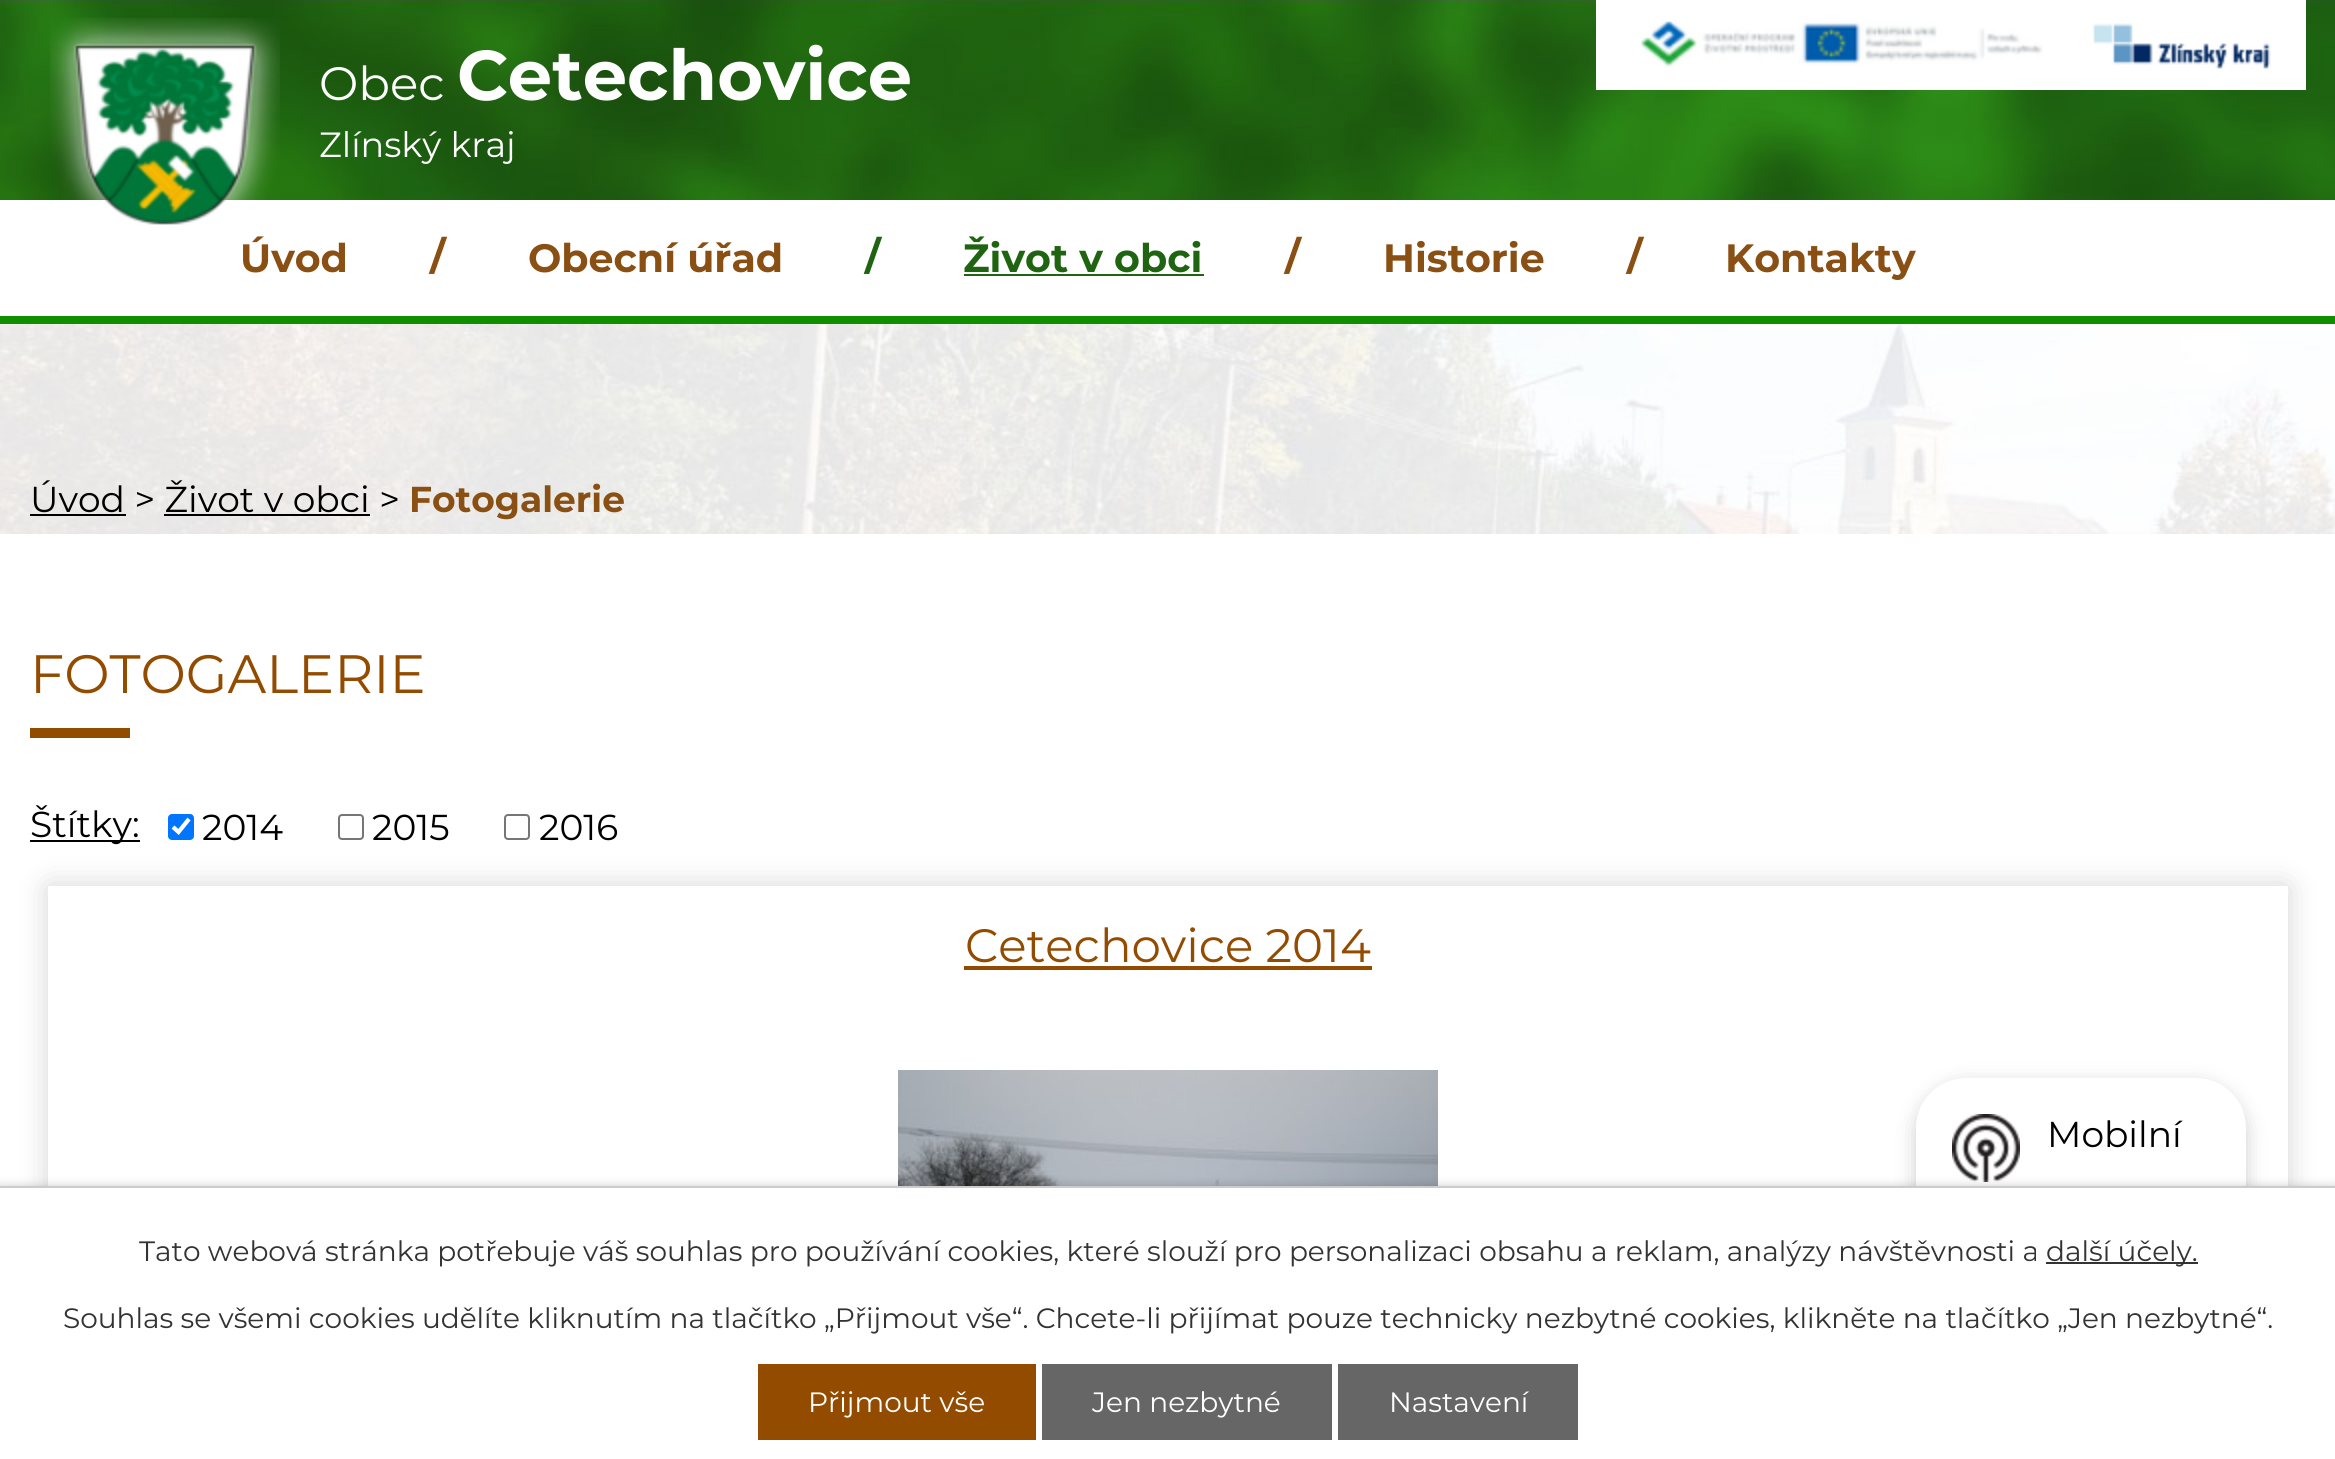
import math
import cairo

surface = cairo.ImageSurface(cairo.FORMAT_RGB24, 2335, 1459)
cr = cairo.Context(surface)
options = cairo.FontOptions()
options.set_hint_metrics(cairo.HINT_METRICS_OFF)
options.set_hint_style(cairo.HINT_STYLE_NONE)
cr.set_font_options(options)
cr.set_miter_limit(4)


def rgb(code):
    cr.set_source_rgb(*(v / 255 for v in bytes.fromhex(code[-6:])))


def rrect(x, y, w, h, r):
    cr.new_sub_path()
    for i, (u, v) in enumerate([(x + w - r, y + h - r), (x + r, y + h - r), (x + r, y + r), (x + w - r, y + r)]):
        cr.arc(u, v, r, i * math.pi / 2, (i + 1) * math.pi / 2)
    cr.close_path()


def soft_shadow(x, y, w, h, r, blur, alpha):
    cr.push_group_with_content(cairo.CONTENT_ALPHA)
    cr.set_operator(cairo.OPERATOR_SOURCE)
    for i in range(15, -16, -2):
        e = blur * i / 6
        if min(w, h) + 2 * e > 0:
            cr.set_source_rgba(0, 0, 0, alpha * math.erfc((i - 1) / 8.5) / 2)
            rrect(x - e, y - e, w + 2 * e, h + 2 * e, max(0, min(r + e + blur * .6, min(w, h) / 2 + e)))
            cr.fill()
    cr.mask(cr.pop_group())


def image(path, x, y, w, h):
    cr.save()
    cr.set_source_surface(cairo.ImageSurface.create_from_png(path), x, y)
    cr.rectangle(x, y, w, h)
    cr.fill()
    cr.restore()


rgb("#ffffff")
cr.paint()
image("img/1.png", 0, 324, 2335, 210)
image("img/2.png", 0, 0, 2335, 200)
image("img/3.png", 50, 18, 230, 207)
rgb("#ffffff")
cr.rectangle(1596, 0, 710, 90)
cr.fill()
image("img/4.png", 1640, 21, 403, 46)
image("img/5.png", 2093, 23, 178, 46)
for x, y, w, h, color in [
    (0, 316, 2335, 8, "#118d00"),
    (964, 274, 240, 2, "#1f6410"),
    (30, 514, 96, 2, "#000000"),
    (164, 514, 206, 2, "#000000"),
    (30, 728, 100, 10, "#914c00"),
    (30, 840, 110, 2, "#000000"),
]:
    rgb(color)
    cr.rectangle(x, y, w, h)
    cr.fill()
rgb("#0075ff")
rrect(168, 814, 26, 26, 4)
cr.fill()
cr.new_path()
cr.move_to(173, 827)
cr.line_to(178.5, 832)
cr.line_to(189, 819)
rgb("#ffffff")
cr.set_line_width(4.2)
cr.stroke()
rrect(339, 815, 24, 24, 3)
rgb("#767676")
cr.set_line_width(2)
cr.stroke()
rrect(505, 815, 24, 24, 3)
cr.stroke()
cr.save()
cr.set_fill_rule(cairo.FILL_RULE_EVEN_ODD)
cr.new_path()
cr.move_to(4, 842)
cr.line_to(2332, 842)
cr.line_to(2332, 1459)
cr.line_to(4, 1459)
cr.close_path()
cr.move_to(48, 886)
cr.line_to(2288, 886)
cr.line_to(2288, 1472)
cr.line_to(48, 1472)
cr.close_path()
cr.clip()
rgb("#000000")
soft_shadow(50, 888, 2236, 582, 0, 15, 0.2)
cr.restore()
rgb("#934b00")
cr.rectangle(964, 966, 408, 4)
cr.fill()
image("img/6.png", 898, 1070, 540, 116)
rgb("#000000")
soft_shadow(1916, 1084, 330, 292, 50, 10, 0.2)
rgb("#ffffff")
rrect(1916, 1078, 330, 292, 50)
cr.fill()
image("img/7.png", 1952, 1114, 68, 68)
rgb("#000000")
soft_shadow(0, 1186, 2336, 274, 0, 5, 0.2)
for x, y, w, h, color in [
    (0, 1188, 2335, 271, "#ffffff"),
    (0, 1186, 2335, 2, "#cccccc"),
    (2046, 1262, 152, 2, "#333333"),
    (758, 1364, 278, 76, "#934b00"),
    (1042, 1364, 290, 76, "#666666"),
    (1338, 1364, 240, 76, "#666666"),
]:
    rgb(color)
    cr.rectangle(x, y, w, h)
    cr.fill()
cr.select_font_face("Montserrat")
cr.set_font_size(46.75)
rgb("#ffffff")
cr.move_to(319, 100)
cr.show_text("Obec")
cr.select_font_face("Montserrat", cairo.FONT_SLANT_NORMAL, cairo.FONT_WEIGHT_BOLD)
cr.set_font_size(70.25)
cr.move_to(457, 100)
cr.show_text("Cetechovice")
cr.select_font_face("Montserrat")
cr.set_font_size(35)
cr.move_to(319, 157)
cr.show_text("Zlínský kraj")
cr.select_font_face("Montserrat", cairo.FONT_SLANT_NORMAL, cairo.FONT_WEIGHT_BOLD)
cr.set_font_size(39.5)
rgb("#8a4f12")
for x, y, s in [
    (240, 272, "Úvod"),
    (430, 270, "/"),
    (528, 272, "Obecní úřad"),
]:
    cr.move_to(x, y)
    cr.show_text(s)
rgb("#1f6410")
cr.move_to(865, 270)
cr.show_text("/")
cr.move_to(963, 272)
cr.show_text("Život v obci")
rgb("#8a4f12")
for x, y, s in [
    (1285, 270, "/"),
    (1383, 272, "Historie"),
    (1627, 270, "/"),
    (1725, 272, "Kontakty"),
]:
    cr.move_to(x, y)
    cr.show_text(s)
cr.select_font_face("Montserrat")
cr.set_font_size(36)
rgb("#000000")
cr.move_to(30, 512)
cr.show_text("Úvod > Život v obci >")
cr.select_font_face("Montserrat", cairo.FONT_SLANT_NORMAL, cairo.FONT_WEIGHT_BOLD)
rgb("#8a4f12")
cr.move_to(409, 512)
cr.show_text("Fotogalerie")
cr.select_font_face("Montserrat")
cr.set_font_size(54)
rgb("#934b00")
cr.move_to(30, 693)
cr.show_text("FOTOGALERIE")
cr.set_font_size(36)
rgb("#000000")
for x, y, s in [
    (30, 837, "Štítky:"),
    (202, 840, "2014"),
    (372, 840, "2015"),
    (539, 840, "2016"),
]:
    cr.move_to(x, y)
    cr.show_text(s)
cr.set_font_size(46.75)
rgb("#934b00")
cr.move_to(965, 962)
cr.show_text("Cetechovice 2014")
cr.set_font_size(36)
rgb("#000000")
cr.move_to(2047, 1147)
cr.show_text("Mobilní")
cr.set_font_size(28)
rgb("#333333")
for x, y, s in [
    (139, 1261, "Tato webová stránka potřebuje váš souhlas pro používání cookies, které slouží pro personalizaci obsahu a reklam, analýzy návštěvnosti a"),
    (2046, 1261, "další účely."),
    (63, 1328, "Souhlas se všemi cookies udělíte kliknutím na tlačítko „Přijmout vše“. Chcete-li přijímat pouze technicky nezbytné cookies, klikněte na tlačítko „Jen nezbytné“."),
]:
    cr.move_to(x, y)
    cr.show_text(s)
rgb("#ffffff")
for x, y, s in [
    (808, 1412, "Přijmout vše"),
    (1092, 1412, "Jen nezbytné"),
    (1389, 1412, "Nastavení"),
]:
    cr.move_to(x, y)
    cr.show_text(s)
surface.write_to_png("page.png")
